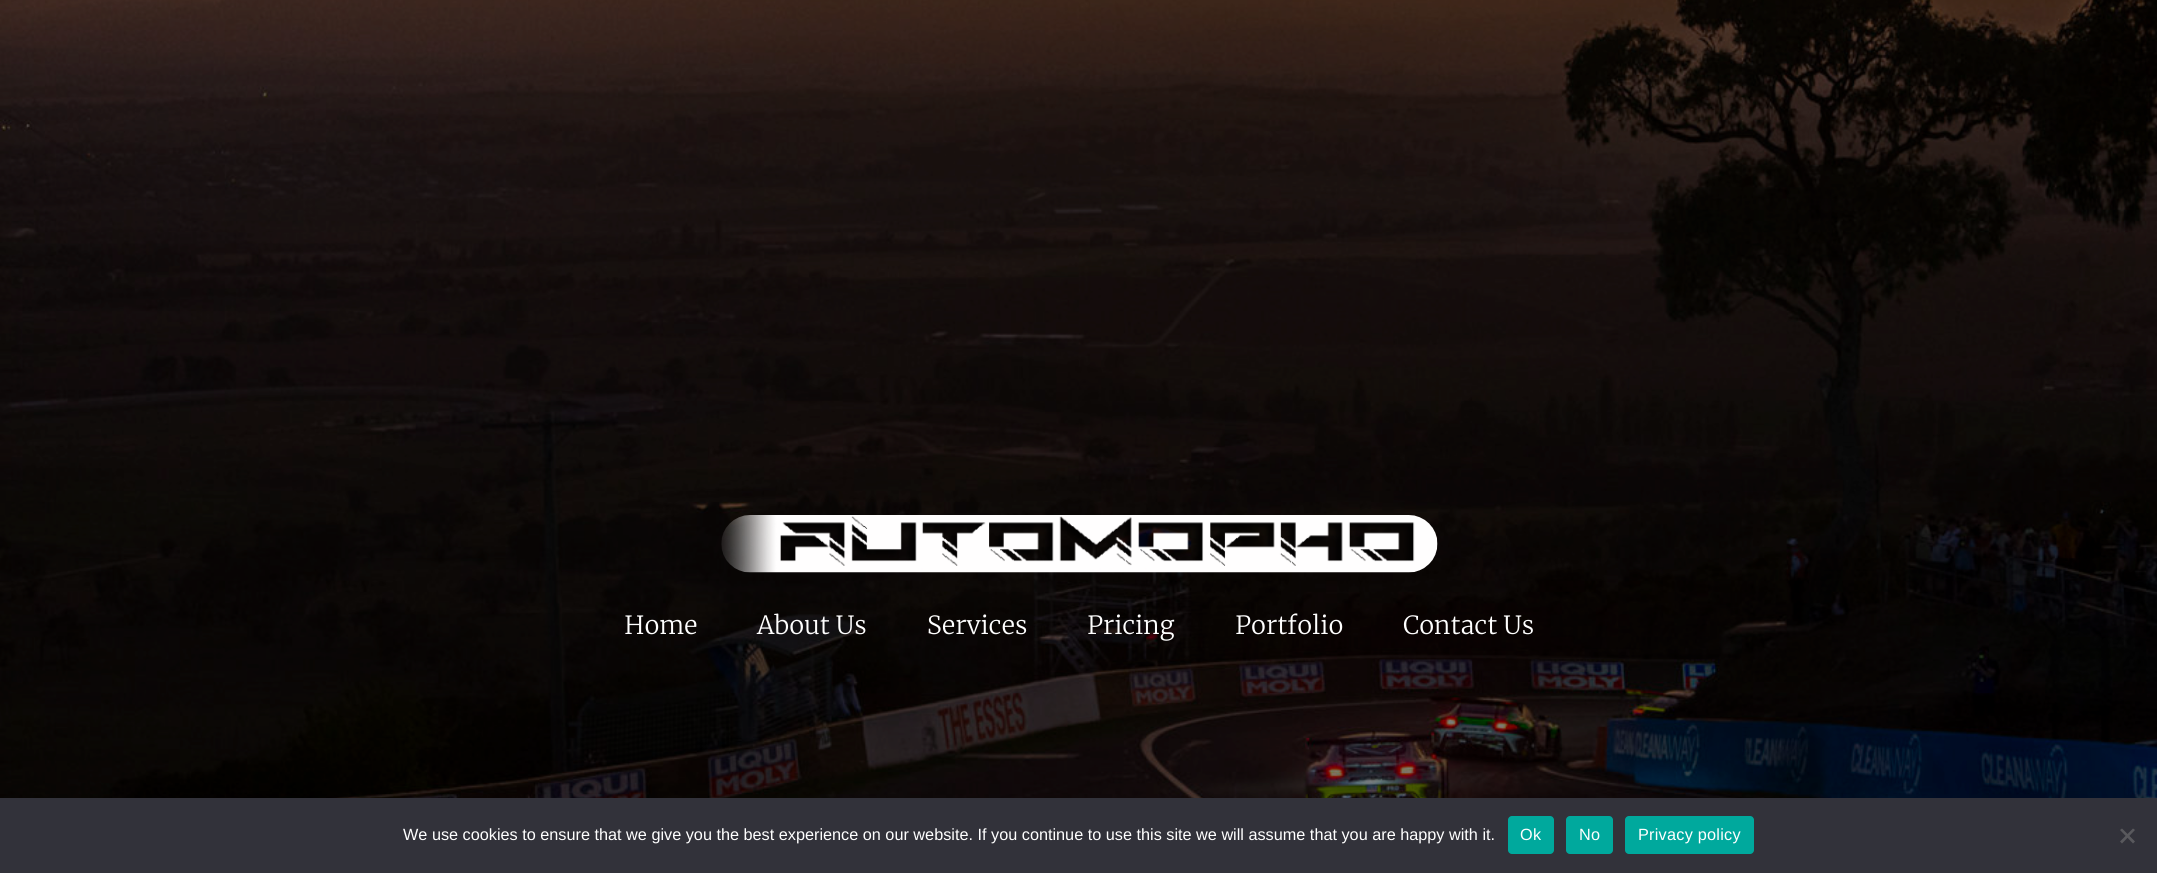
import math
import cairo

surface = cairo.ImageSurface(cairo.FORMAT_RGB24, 2157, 873)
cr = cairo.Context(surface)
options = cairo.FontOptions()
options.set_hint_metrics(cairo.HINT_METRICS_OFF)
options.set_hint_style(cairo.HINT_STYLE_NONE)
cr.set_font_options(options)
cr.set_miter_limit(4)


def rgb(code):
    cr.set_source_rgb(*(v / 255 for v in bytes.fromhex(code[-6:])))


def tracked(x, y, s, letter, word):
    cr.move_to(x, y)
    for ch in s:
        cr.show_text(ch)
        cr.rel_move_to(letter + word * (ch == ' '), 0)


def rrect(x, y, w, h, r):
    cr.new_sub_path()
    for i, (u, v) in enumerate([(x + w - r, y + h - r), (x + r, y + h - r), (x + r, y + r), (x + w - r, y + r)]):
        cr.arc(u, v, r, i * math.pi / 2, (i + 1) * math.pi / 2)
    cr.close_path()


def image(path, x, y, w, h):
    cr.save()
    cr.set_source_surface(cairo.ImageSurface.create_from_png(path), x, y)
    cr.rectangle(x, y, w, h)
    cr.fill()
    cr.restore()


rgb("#ffffff")
cr.paint()
image("img/1.png", 0, 0, 2157, 798)
image("img/2.png", 721, 515, 717, 58)
rgb("#32323a")
cr.rectangle(0, 798, 2157, 75)
cr.fill()
rgb("#00a99d")
rrect(1508, 816, 46, 38, 4)
cr.fill()
rrect(1566, 816, 47, 38, 4)
cr.fill()
rrect(1625, 816, 129, 38, 4)
cr.fill()
rgb("#59595d")
cr.new_path()
cr.move_to(2133, 828.5)
cr.line_to(2135, 830)
cr.line_to(2122, 843.5)
cr.line_to(2120, 841.5)
cr.close_path()
cr.fill()
cr.new_path()
cr.move_to(2120, 830)
cr.line_to(2122, 828.5)
cr.line_to(2135, 841.5)
cr.line_to(2133, 843.5)
cr.close_path()
cr.fill()
cr.select_font_face("Merriweather Light")
cr.set_font_size(25)
rgb("#ffffff")
for x, y, s in [
    (624, 634, "Home"),
    (757, 634, "About Us"),
    (927, 634, "Services"),
    (1087, 634, "Pricing"),
    (1235, 634, "Portfolio"),
    (1403, 634, "Contact Us"),
]:
    cr.move_to(x, y)
    cr.show_text(s)
cr.select_font_face("Liberation Sans")
cr.set_font_size(16.25)
cr.move_to(403, 840)
cr.show_text("We use cookies to ensure that we give you the best experience on our website. If you continue to use this site we will assume that you are happy with it.")
for x, y, s in [
    (1520, 840, "Ok"),
    (1579, 840, "No"),
    (1638, 840, "Privacy policy"),
]:
    tracked(x, y, s, 0.25, 0)
surface.write_to_png("page.png")
